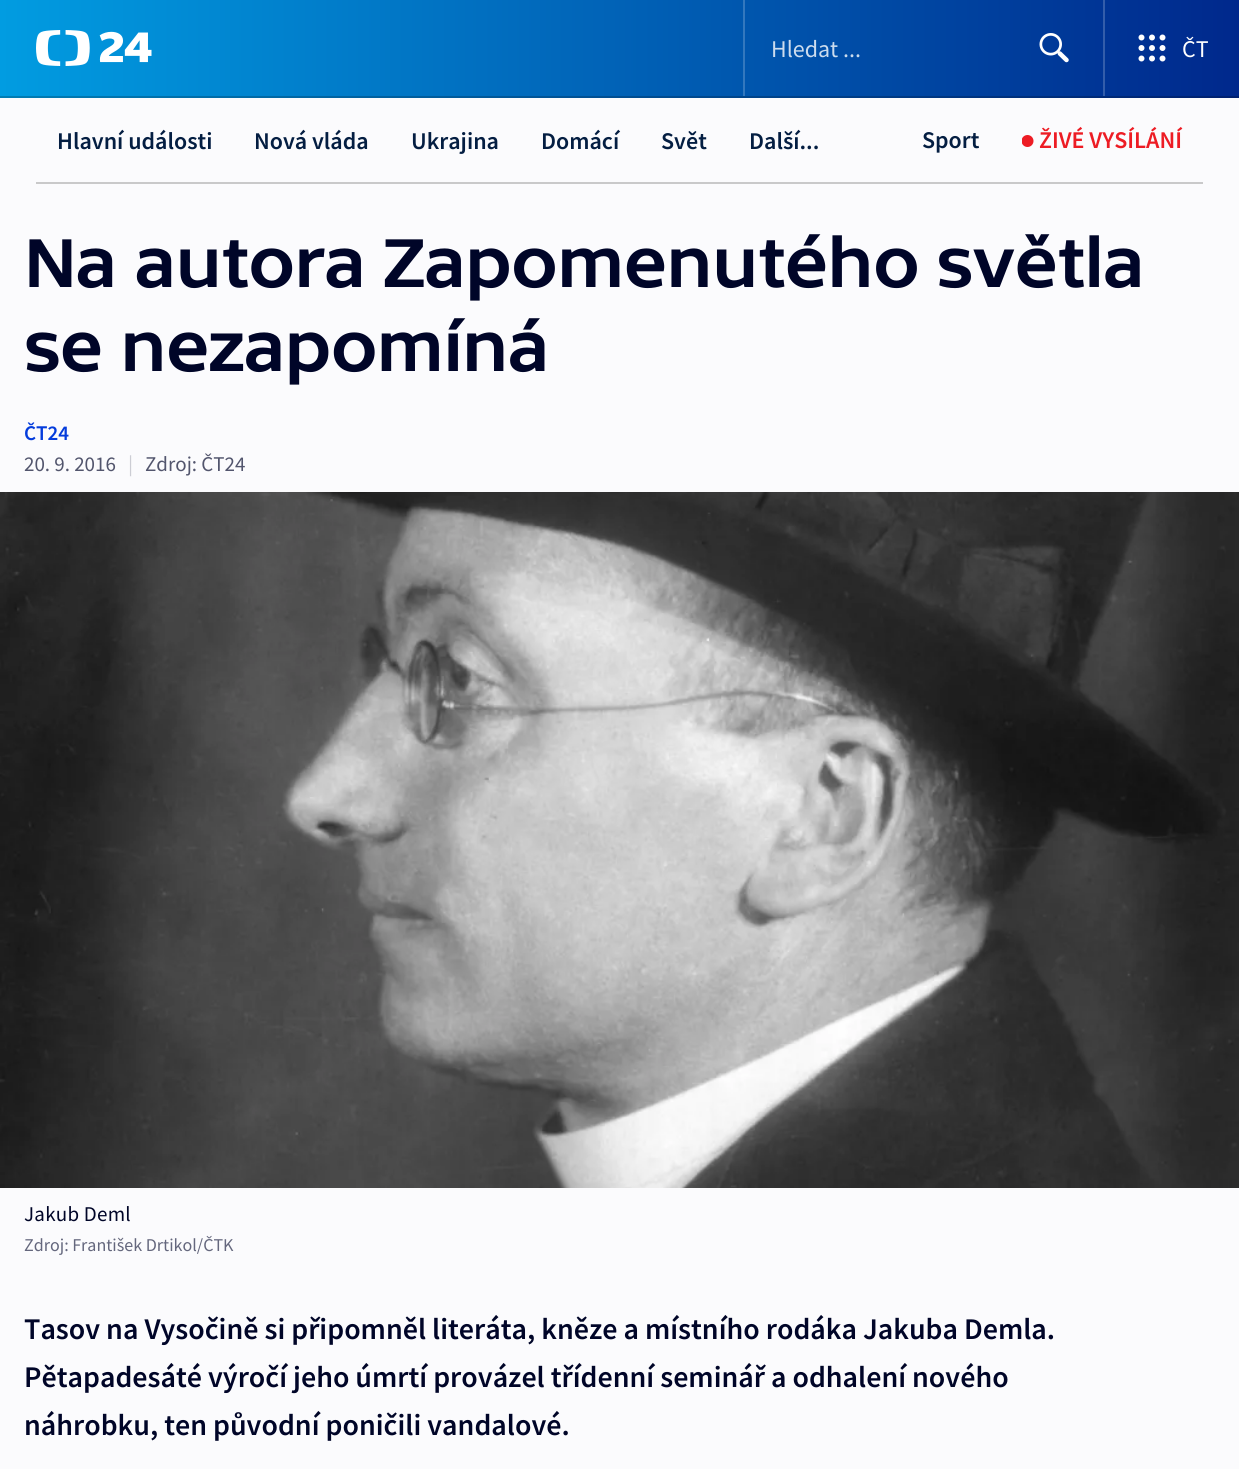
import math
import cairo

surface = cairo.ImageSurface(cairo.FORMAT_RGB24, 1239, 1469)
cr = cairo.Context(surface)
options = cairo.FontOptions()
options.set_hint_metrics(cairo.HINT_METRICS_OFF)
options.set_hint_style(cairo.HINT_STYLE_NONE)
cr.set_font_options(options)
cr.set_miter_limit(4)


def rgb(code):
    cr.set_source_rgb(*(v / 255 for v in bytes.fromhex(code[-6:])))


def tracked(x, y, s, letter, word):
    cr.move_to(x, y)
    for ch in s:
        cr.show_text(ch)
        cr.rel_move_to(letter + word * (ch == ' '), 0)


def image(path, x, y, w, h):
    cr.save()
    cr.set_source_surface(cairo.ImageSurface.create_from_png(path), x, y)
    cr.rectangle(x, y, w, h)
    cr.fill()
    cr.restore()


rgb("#fbfbfd")
cr.paint()
gradient = cairo.LinearGradient(0, 48, 1239, 48)
gradient.add_color_stop_rgba(0, 0.004, 0.612, 0.882, 1)
gradient.add_color_stop_rgba(1, 0, 0.157, 0.549, 1)
cr.set_source(gradient)
cr.rectangle(0, 0, 1239, 96)
cr.fill()
gradient = cairo.LinearGradient(0, 48, 1239, 48)
gradient.add_color_stop_rgba(0, 0.004, 0.49, 0.706, 1)
gradient.add_color_stop_rgba(1, 0, 0.125, 0.439, 1)
cr.set_source(gradient)
cr.rectangle(0, 96, 1239, 2)
cr.fill()
image("img/1.png", 36, 30, 116, 36)
rgb("#3378be")
cr.rectangle(743, 0, 2, 96)
cr.fill()
image("img/2.png", 1039, 33, 30, 30)
rgb("#335daa")
cr.rectangle(1103, 0, 2, 96)
cr.fill()
image("img/3.png", 1138, 34, 28, 28)
rgb("#c9c9ca")
cr.rectangle(36, 182, 1167, 2)
cr.fill()
cr.save()
cr.rectangle(1022, 135, 12, 12)
cr.clip()
rgb("#ed1c24")
cr.arc(1027.5, 141, 6, 0, 2 * math.pi)
cr.fill()
cr.restore()
image("img/4.png", 0, 492, 1239, 696)
cr.select_font_face("Source Sans Pro")
cr.set_font_size(24)
rgb("#ccdcee")
cr.move_to(771, 57)
cr.show_text("Hledat ...")
rgb("#ffffff")
cr.move_to(1182, 57)
cr.show_text("ČT")
cr.select_font_face("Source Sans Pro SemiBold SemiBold")
rgb("#041e42")
for x, y, s in [
    (57, 149, "Hlavní události"),
    (254, 149, "Nová vláda"),
    (411, 149, "Ukrajina"),
    (541, 149, "Domácí"),
    (661, 149, "Svět"),
    (749, 149, "Další..."),
    (922, 148, "Sport"),
]:
    cr.move_to(x, y)
    cr.show_text(s)
rgb("#ed1c24")
cr.move_to(1039, 148)
cr.show_text("ŽIVÉ VYSÍLÁNÍ")
cr.select_font_face("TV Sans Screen")
cr.set_font_size(72)
rgb("#000528")
tracked(24, 287, "Na autora Zapomenutého světla", -1.5, 0)
tracked(24, 371, "se nezapomíná", -1.5, 0)
cr.select_font_face("Source Sans Pro SemiBold SemiBold")
cr.set_font_size(21)
rgb("#043cdc")
cr.move_to(24, 440)
cr.show_text("ČT24")
cr.select_font_face("Source Sans Pro")
rgb("#52556d")
cr.move_to(24, 471)
cr.show_text("20. 9. 2016")
rgb("#cccdd4")
cr.move_to(128, 471)
cr.show_text("|")
rgb("#52556d")
cr.move_to(145, 471)
cr.show_text("Zdroj: ČT24")
rgb("#000528")
tracked(24, 1221, "Jakub Deml", 0.25, 0)
cr.set_font_size(18)
rgb("#64677d")
cr.move_to(24, 1251)
cr.show_text("Zdroj: František Drtikol/ČTK")
cr.select_font_face("Source Sans Pro SemiBold SemiBold")
cr.set_font_size(30)
rgb("#000528")
for x, y, s in [
    (24, 1339, "Tasov na Vysočině si připomněl literáta, kněze a místního rodáka Jakuba Demla."),
    (24, 1387, "Pětapadesáté výročí jeho úmrtí provázel třídenní seminář a odhalení nového"),
    (24, 1435, "náhrobku, ten původní poničili vandalové."),
]:
    cr.move_to(x, y)
    cr.show_text(s)
surface.write_to_png("page.png")
